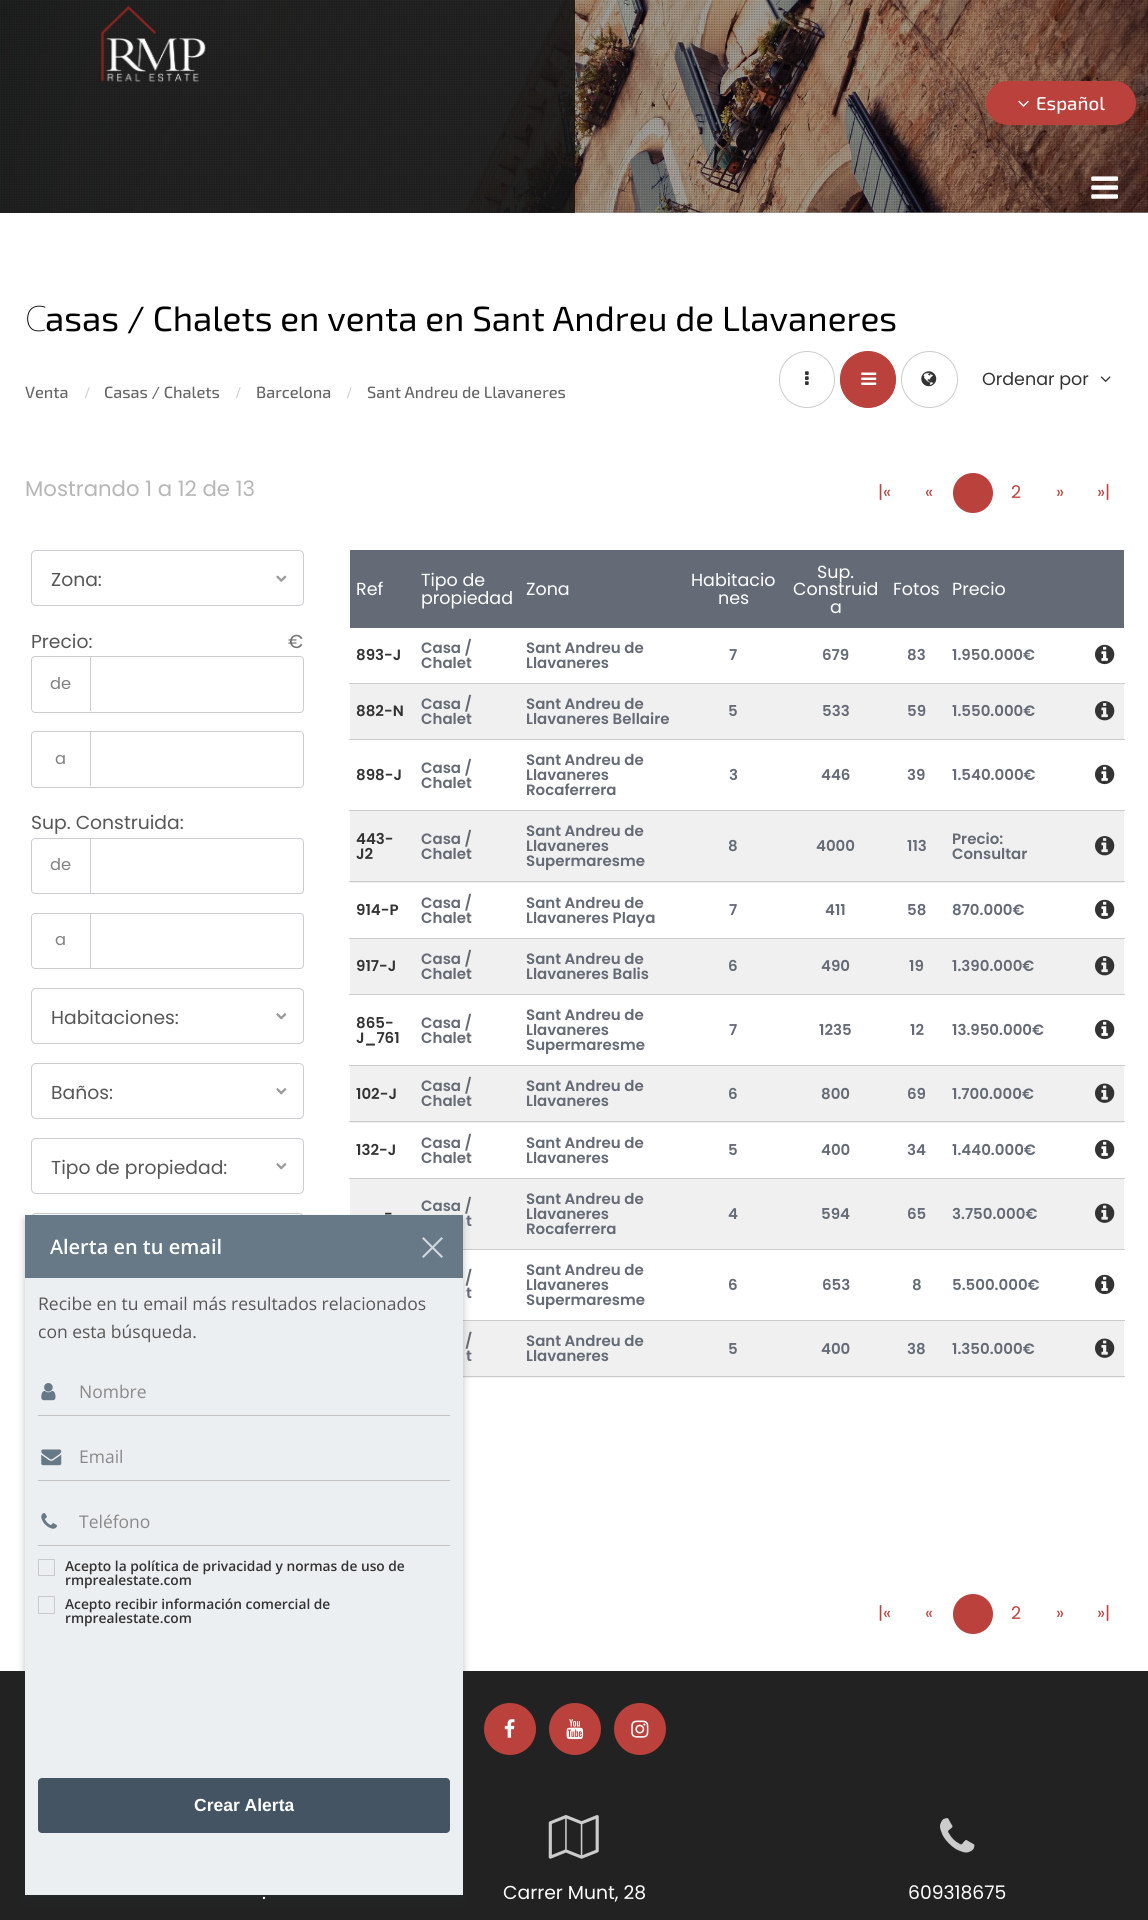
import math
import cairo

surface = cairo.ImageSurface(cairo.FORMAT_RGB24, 1148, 1920)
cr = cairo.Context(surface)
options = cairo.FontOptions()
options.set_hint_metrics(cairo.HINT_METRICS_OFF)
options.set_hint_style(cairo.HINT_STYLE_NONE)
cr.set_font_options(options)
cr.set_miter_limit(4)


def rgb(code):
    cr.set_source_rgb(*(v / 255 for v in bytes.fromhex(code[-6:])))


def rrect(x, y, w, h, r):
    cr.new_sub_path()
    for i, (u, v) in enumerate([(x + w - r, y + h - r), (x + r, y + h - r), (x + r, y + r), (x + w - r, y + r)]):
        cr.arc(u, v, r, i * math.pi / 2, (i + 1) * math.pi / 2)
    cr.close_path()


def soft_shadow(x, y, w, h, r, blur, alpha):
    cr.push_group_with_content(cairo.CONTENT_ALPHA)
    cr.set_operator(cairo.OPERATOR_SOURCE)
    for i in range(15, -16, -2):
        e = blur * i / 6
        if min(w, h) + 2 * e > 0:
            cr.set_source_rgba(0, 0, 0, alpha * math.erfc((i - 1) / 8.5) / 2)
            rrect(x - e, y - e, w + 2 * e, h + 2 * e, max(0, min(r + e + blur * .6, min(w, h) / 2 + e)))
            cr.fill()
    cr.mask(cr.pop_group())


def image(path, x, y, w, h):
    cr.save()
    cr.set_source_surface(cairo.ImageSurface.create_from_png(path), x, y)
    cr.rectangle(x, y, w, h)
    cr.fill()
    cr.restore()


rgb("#ffffff")
cr.paint()
rgb("#a6a6a6")
cr.rectangle(0, 212, 1148, 1)
cr.fill()
image("img/1.png", 0, 0, 1148, 213)
cr.set_source_rgba(0.086, 0.086, 0.086, 0.9)
cr.rectangle(0, 0, 575, 213)
cr.fill()
image("img/2.png", 1, 0, 1147, 213)
image("img/3.png", 101, 6, 105, 76)
rgb("#ba413c")
rrect(986, 81, 150, 44, 22)
cr.fill()
image("img/4.png", 1018, 100, 11, 7)
image("img/5.png", 1091, 176, 28, 23)
rrect(779.5, 351.5, 55, 56, 27.5)
rgb("#cccccc")
cr.set_line_width(1)
cr.stroke()
image("img/6.png", 805, 371, 4, 14)
rgb("#ba413c")
rrect(840.5, 351.5, 55, 56, 27.5)
cr.fill_preserve()
cr.stroke()
image("img/7.png", 861, 372, 16, 13)
cr.arc(929.5, 379.5, 28, 0, 2 * math.pi)
rgb("#cccccc")
cr.stroke()
image("img/8.png", 921, 371, 16, 16)
image("img/9.png", 1100, 376, 11, 6)
rgb("#ba413c")
cr.arc(973, 493, 20, 0, 2 * math.pi)
cr.fill()
image("img/10.png", 276, 575, 11, 7)
rrect(31.5, 550.5, 272, 55, 4.5)
rgb("#cdcdd1")
cr.stroke()
rrect(31.5, 656.5, 272, 56, 3.5)
cr.stroke()
cr.rectangle(90, 656, 1, 55)
cr.fill()
rrect(31.5, 731.5, 272, 56, 3.5)
cr.stroke()
cr.rectangle(90, 731, 1, 55)
cr.fill()
rrect(31.5, 838.5, 272, 55, 3.5)
cr.stroke()
cr.rectangle(90, 838, 1, 55)
cr.fill()
rrect(31.5, 913.5, 272, 55, 3.5)
cr.stroke()
cr.rectangle(90, 913, 1, 55)
cr.fill()
image("img/11.png", 276, 1013, 11, 7)
rrect(31.5, 988.5, 272, 55, 4.5)
cr.stroke()
image("img/11.png", 276, 1088, 11, 7)
rrect(31.5, 1063.5, 272, 55, 4.5)
cr.stroke()
image("img/11.png", 276, 1163, 11, 7)
rrect(31.5, 1138.5, 272, 55, 4.5)
cr.stroke()
rrect(31.5, 1213.5, 272, 55, 4.5)
cr.stroke()
rgb("#646b76")
cr.rectangle(350, 550, 774, 78)
cr.fill()
rgb("#cccccc")
cr.rectangle(349, 683, 776, 1)
cr.fill()
image("img/12.png", 1095, 644, 20, 21)
cr.rectangle(349, 739, 776, 1)
cr.fill()
rgb("#f0f0f0")
cr.rectangle(350, 684, 774, 55)
cr.fill()
image("img/13.png", 1095, 701, 20, 20)
rgb("#cccccc")
cr.rectangle(349, 810, 776, 1)
cr.fill()
image("img/12.png", 1095, 764, 20, 21)
rgb("#f0f0f0")
cr.rectangle(350, 811, 774, 72)
cr.fill()
rgb("#cccccc")
cr.rectangle(349, 881, 776, 1)
cr.fill()
image("img/13.png", 1095, 836, 20, 20)
cr.rectangle(349, 938, 776, 1)
cr.fill()
image("img/12.png", 1095, 899, 20, 21)
cr.rectangle(349, 994, 776, 1)
cr.fill()
rgb("#f0f0f0")
cr.rectangle(350, 939, 774, 55)
cr.fill()
image("img/13.png", 1095, 956, 20, 20)
rgb("#cccccc")
cr.rectangle(349, 1065, 776, 1)
cr.fill()
image("img/12.png", 1095, 1019, 20, 21)
rgb("#f0f0f0")
cr.rectangle(350, 1066, 774, 57)
cr.fill()
rgb("#cccccc")
cr.rectangle(349, 1121, 776, 1)
cr.fill()
image("img/14.png", 1095, 1083, 20, 20)
cr.rectangle(349, 1178, 776, 1)
cr.fill()
image("img/12.png", 1095, 1139, 20, 21)
rgb("#f0f0f0")
cr.rectangle(415, 1179, 709, 70)
cr.fill()
rgb("#cccccc")
cr.rectangle(463, 1249, 662, 1)
cr.fill()
image("img/14.png", 1095, 1203, 20, 20)
rgb("#f0f0f0")
cr.rectangle(350, 1179, 65, 36)
cr.fill()
rgb("#cccccc")
cr.rectangle(463, 1320, 662, 1)
cr.fill()
image("img/12.png", 1095, 1274, 20, 21)
rgb("#f0f0f0")
cr.rectangle(463, 1321, 661, 57)
cr.fill()
rgb("#cccccc")
cr.rectangle(463, 1376, 662, 1)
cr.fill()
image("img/14.png", 1095, 1338, 20, 20)
rgb("#222222")
cr.rectangle(0, 1671, 1148, 249)
cr.fill()
rgb("#233238")
soft_shadow(25, 1220, 438, 680, 0, 4, 0.3)
rgb("#eceff1")
cr.rectangle(25, 1278, 438, 617)
cr.fill()
rgb("#677887")
cr.rectangle(25, 1215, 438, 63)
cr.fill()
rgb("#d1d7db")
cr.new_path()
cr.move_to(423.5, 1237)
cr.line_to(443, 1256.5)
cr.line_to(441.5, 1258)
cr.line_to(422, 1238.5)
cr.close_path()
cr.fill()
cr.new_path()
cr.move_to(422, 1256.5)
cr.line_to(441.5, 1237)
cr.line_to(443, 1238.5)
cr.line_to(423.5, 1258)
cr.close_path()
cr.fill()
image("img/15.png", 41, 1383, 15, 18)
rgb("#c2c2c2")
cr.rectangle(38, 1415, 412, 1)
cr.fill()
image("img/16.png", 41, 1449, 21, 17)
cr.rectangle(38, 1480, 412, 1)
cr.fill()
image("img/17.png", 41, 1513, 16, 16)
cr.rectangle(38, 1545, 412, 1)
cr.fill()
rrect(38.5, 1559.5, 16, 16, 0.5)
rgb("#c9c9c9")
cr.stroke()
rrect(38.5, 1596.5, 16, 17, 0.5)
cr.stroke()
rgb("#455462")
rrect(38, 1778, 412, 55, 4)
cr.fill()
rgb("#ba413c")
cr.arc(973, 1614, 20, 0, 2 * math.pi)
cr.fill()
cr.arc(510, 1729, 26, 0, 2 * math.pi)
cr.fill()
image("img/18.png", 504, 1719, 11, 19)
cr.arc(575, 1729, 26, 0, 2 * math.pi)
cr.fill()
image("img/19.png", 566, 1719, 18, 21)
cr.arc(640, 1729, 26, 0, 2 * math.pi)
cr.fill()
image("img/20.png", 631, 1720, 18, 18)
image("img/21.png", 548, 1815, 51, 44)
image("img/22.png", 940, 1818, 35, 35)
cr.select_font_face("Exo 2 Medium")
cr.set_font_size(18.75)
rgb("#ffffff")
cr.move_to(1036, 110)
cr.show_text("Español")
cr.select_font_face("Noto Sans Thin")
cr.set_font_size(35)
rgb("#000000")
cr.move_to(25, 331)
cr.show_text("C")
cr.select_font_face("Exo 2")
cr.move_to(45, 331)
cr.show_text("asas / Chalets en venta en Sant Andreu de Llavaneres")
cr.select_font_face("Poppins")
cr.set_font_size(17.5)
rgb("#333333")
cr.move_to(982, 385)
cr.show_text("Ordenar por")
cr.select_font_face("Exo 2 Medium")
cr.set_font_size(16.25)
rgb("#666666")
cr.move_to(25, 398)
cr.show_text("Venta")
cr.select_font_face("Liberation Serif", cairo.FONT_SLANT_NORMAL, cairo.FONT_WEIGHT_BOLD)
rgb("#cccccc")
cr.move_to(85, 398)
cr.show_text("/")
cr.select_font_face("Exo 2 Medium")
rgb("#666666")
cr.move_to(104, 398)
cr.show_text("Casas / Chalets")
cr.select_font_face("Liberation Serif", cairo.FONT_SLANT_NORMAL, cairo.FONT_WEIGHT_BOLD)
rgb("#cccccc")
cr.move_to(236, 398)
cr.show_text("/")
cr.select_font_face("Exo 2 Medium")
rgb("#666666")
cr.move_to(256, 398)
cr.show_text("Barcelona")
cr.select_font_face("Liberation Serif", cairo.FONT_SLANT_NORMAL, cairo.FONT_WEIGHT_BOLD)
rgb("#cccccc")
cr.move_to(347, 398)
cr.show_text("/")
cr.select_font_face("Exo 2 Medium")
rgb("#666666")
cr.move_to(367, 398)
cr.show_text("Sant Andreu de Llavaneres")
cr.select_font_face("Poppins")
cr.set_font_size(21.25)
rgb("#b6b6b6")
cr.move_to(25, 496)
cr.show_text("Mostrando 1 a 12 de 13")
cr.set_font_size(17.5)
rgb("#ba413c")
for x, y, s in [
    (878, 498, "|«"),
    (925, 498, "«"),
    (1011, 498, "2"),
    (1056, 498, "»"),
    (1097, 498, "»|"),
]:
    cr.move_to(x, y)
    cr.show_text(s)
cr.set_font_size(18.75)
rgb("#575757")
cr.move_to(51, 586)
cr.show_text("Zona:")
cr.move_to(31, 648)
cr.show_text("Precio:")
rgb("#737373")
cr.move_to(288, 648)
cr.show_text("€")
cr.set_font_size(16.25)
rgb("#808080")
cr.move_to(50, 689)
cr.show_text("de")
cr.move_to(55, 764)
cr.show_text("a")
cr.set_font_size(18.75)
rgb("#575757")
cr.move_to(31, 829)
cr.show_text("Sup. Construida:")
cr.set_font_size(16.25)
rgb("#808080")
cr.move_to(50, 870)
cr.show_text("de")
cr.move_to(55, 945)
cr.show_text("a")
cr.set_font_size(18.75)
rgb("#575757")
for x, y, s in [
    (51, 1024, "Habitaciones:"),
    (51, 1099, "Baños:"),
    (51, 1174, "Tipo de propiedad:"),
]:
    cr.move_to(x, y)
    cr.show_text(s)
cr.set_font_size(17.5)
rgb("#ffffff")
for x, y, s in [
    (356, 595, "Ref"),
    (421, 586, "Tipo de"),
    (421, 604, "propiedad"),
    (526, 595, "Zona"),
    (691, 586, "Habitacio"),
    (718, 604, "nes"),
    (817, 578, "Sup."),
    (793, 595, "Construid"),
    (830, 613, "a"),
    (893, 595, "Fotos"),
    (952, 595, "Precio"),
]:
    cr.move_to(x, y)
    cr.show_text(s)
cr.select_font_face("Poppins SemiBold")
cr.set_font_size(15)
rgb("#646b76")
for x, y, s in [
    (421, 653, "Casa /"),
    (421, 668, "Chalet"),
    (526, 653, "Sant Andreu de"),
    (526, 668, "Llavaneres"),
]:
    cr.move_to(x, y)
    cr.show_text(s)
rgb("#333333")
cr.move_to(356, 660)
cr.show_text("893-J")
rgb("#646b76")
for x, y, s in [
    (729, 660, "7"),
    (822, 660, "679"),
    (907, 660, "83"),
    (952, 660, "1.950.000€"),
    (421, 709, "Casa /"),
    (421, 724, "Chalet"),
    (526, 709, "Sant Andreu de"),
    (526, 724, "Llavaneres Bellaire"),
]:
    cr.move_to(x, y)
    cr.show_text(s)
rgb("#333333")
cr.move_to(356, 716)
cr.show_text("882-N")
rgb("#646b76")
for x, y, s in [
    (728, 716, "5"),
    (822, 716, "533"),
    (907, 716, "59"),
    (952, 716, "1.550.000€"),
    (421, 773, "Casa /"),
    (421, 788, "Chalet"),
    (526, 765, "Sant Andreu de"),
    (526, 780, "Llavaneres"),
    (526, 795, "Rocaferrera"),
]:
    cr.move_to(x, y)
    cr.show_text(s)
rgb("#333333")
cr.move_to(356, 780)
cr.show_text("898-J")
rgb("#646b76")
for x, y, s in [
    (729, 780, "3"),
    (821, 780, "446"),
    (907, 780, "39"),
    (952, 780, "1.540.000€"),
]:
    cr.move_to(x, y)
    cr.show_text(s)
rgb("#333333")
cr.move_to(356, 844)
cr.show_text("443-")
cr.move_to(356, 859)
cr.show_text("J2")
rgb("#646b76")
for x, y, s in [
    (421, 844, "Casa /"),
    (421, 859, "Chalet"),
    (526, 836, "Sant Andreu de"),
    (526, 851, "Llavaneres"),
    (526, 866, "Supermaresme"),
    (952, 844, "Precio:"),
    (952, 859, "Consultar"),
    (728, 851, "8"),
    (816, 851, "4000"),
    (907, 851, "113"),
    (421, 908, "Casa /"),
    (421, 923, "Chalet"),
    (526, 908, "Sant Andreu de"),
    (526, 923, "Llavaneres Playa"),
]:
    cr.move_to(x, y)
    cr.show_text(s)
rgb("#333333")
cr.move_to(356, 915)
cr.show_text("914-P")
rgb("#646b76")
for x, y, s in [
    (729, 915, "7"),
    (825, 915, "411"),
    (907, 915, "58"),
    (952, 915, "870.000€"),
    (421, 964, "Casa /"),
    (421, 979, "Chalet"),
    (526, 964, "Sant Andreu de"),
    (526, 979, "Llavaneres Balis"),
]:
    cr.move_to(x, y)
    cr.show_text(s)
rgb("#333333")
cr.move_to(356, 971)
cr.show_text("917-J")
rgb("#646b76")
for x, y, s in [
    (728, 971, "6"),
    (821, 971, "490"),
    (909, 971, "19"),
    (952, 971, "1.390.000€"),
]:
    cr.move_to(x, y)
    cr.show_text(s)
rgb("#333333")
cr.move_to(356, 1028)
cr.show_text("865-")
cr.move_to(356, 1043)
cr.show_text("J_761")
rgb("#646b76")
for x, y, s in [
    (421, 1028, "Casa /"),
    (421, 1043, "Chalet"),
    (526, 1020, "Sant Andreu de"),
    (526, 1035, "Llavaneres"),
    (526, 1050, "Supermaresme"),
    (729, 1035, "7"),
    (819, 1035, "1235"),
    (910, 1035, "12"),
    (952, 1035, "13.950.000€"),
    (421, 1091, "Casa /"),
    (421, 1106, "Chalet"),
    (526, 1091, "Sant Andreu de"),
    (526, 1106, "Llavaneres"),
]:
    cr.move_to(x, y)
    cr.show_text(s)
rgb("#333333")
cr.move_to(356, 1099)
cr.show_text("102-J")
rgb("#646b76")
for x, y, s in [
    (728, 1099, "6"),
    (821, 1099, "800"),
    (907, 1099, "69"),
    (952, 1099, "1.700.000€"),
    (421, 1148, "Casa /"),
    (421, 1163, "Chalet"),
    (526, 1148, "Sant Andreu de"),
    (526, 1163, "Llavaneres"),
]:
    cr.move_to(x, y)
    cr.show_text(s)
rgb("#333333")
cr.move_to(356, 1155)
cr.show_text("132-J")
rgb("#646b76")
for x, y, s in [
    (728, 1155, "5"),
    (821, 1155, "400"),
    (907, 1155, "34"),
    (952, 1155, "1.440.000€"),
    (421, 1211, "Casa /"),
    (466, 1226, "t"),
    (526, 1204, "Sant Andreu de"),
    (526, 1219, "Llavaneres"),
    (526, 1234, "Rocaferrera"),
]:
    cr.move_to(x, y)
    cr.show_text(s)
rgb("#333333")
cr.move_to(384, 1219)
cr.show_text("-")
rgb("#646b76")
for x, y, s in [
    (728, 1219, "4"),
    (821, 1219, "594"),
    (907, 1219, "65"),
    (952, 1219, "3.750.000€"),
    (465, 1283, "/"),
    (466, 1298, "t"),
    (526, 1275, "Sant Andreu de"),
    (526, 1290, "Llavaneres"),
    (526, 1305, "Supermaresme"),
    (728, 1290, "6"),
    (822, 1290, "653"),
    (912, 1290, "8"),
    (952, 1290, "5.500.000€"),
    (465, 1346, "/"),
    (466, 1361, "t"),
    (526, 1346, "Sant Andreu de"),
    (526, 1361, "Llavaneres"),
    (728, 1354, "5"),
    (821, 1354, "400"),
    (907, 1354, "38"),
    (952, 1354, "1.350.000€"),
]:
    cr.move_to(x, y)
    cr.show_text(s)
cr.select_font_face("Noto Sans Medium")
cr.set_font_size(20)
rgb("#ffffff")
cr.move_to(50, 1254)
cr.show_text("A")
cr.select_font_face("Open Sans SemiBold")
cr.move_to(63, 1254)
cr.show_text("lerta en tu email")
cr.select_font_face("Open Sans")
cr.set_font_size(17.5)
rgb("#575757")
cr.move_to(38, 1310)
cr.show_text("Recibe en tu email más resultados relacionados")
cr.move_to(38, 1338)
cr.show_text("con esta búsqueda.")
rgb("#8a8989")
for x, y, s in [
    (79, 1398, "Nombre"),
    (79, 1463, "Email"),
    (79, 1528, "Teléfono"),
]:
    cr.move_to(x, y)
    cr.show_text(s)
cr.select_font_face("Open Sans SemiBold")
cr.set_font_size(13.75)
rgb("#333333")
for x, y, s in [
    (65, 1571, "Acepto la política de privacidad y normas de uso de"),
    (65, 1585, "rmprealestate.com"),
    (65, 1609, "Acepto recibir información comercial de"),
    (65, 1623, "rmprealestate.com"),
]:
    cr.move_to(x, y)
    cr.show_text(s)
cr.select_font_face("Liberation Sans", cairo.FONT_SLANT_NORMAL, cairo.FONT_WEIGHT_BOLD)
cr.set_font_size(17.5)
rgb("#ffffff")
cr.move_to(194, 1811)
cr.show_text("Crear Alerta")
cr.select_font_face("Poppins")
rgb("#ba413c")
for x, y, s in [
    (878, 1619, "|«"),
    (925, 1619, "«"),
    (1011, 1619, "2"),
    (1056, 1619, "»"),
    (1097, 1619, "»|"),
]:
    cr.move_to(x, y)
    cr.show_text(s)
cr.set_font_size(18.75)
rgb("#ffffff")
for x, y, s in [
    (262, 1899, "."),
    (503, 1899, "Carrer Munt, 28"),
    (908, 1899, "609318675"),
]:
    cr.move_to(x, y)
    cr.show_text(s)
surface.write_to_png("page.png")
